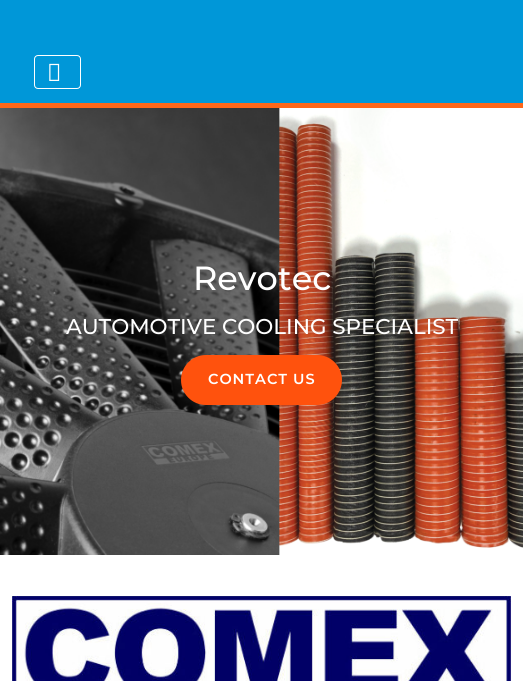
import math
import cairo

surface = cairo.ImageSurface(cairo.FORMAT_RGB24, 523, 681)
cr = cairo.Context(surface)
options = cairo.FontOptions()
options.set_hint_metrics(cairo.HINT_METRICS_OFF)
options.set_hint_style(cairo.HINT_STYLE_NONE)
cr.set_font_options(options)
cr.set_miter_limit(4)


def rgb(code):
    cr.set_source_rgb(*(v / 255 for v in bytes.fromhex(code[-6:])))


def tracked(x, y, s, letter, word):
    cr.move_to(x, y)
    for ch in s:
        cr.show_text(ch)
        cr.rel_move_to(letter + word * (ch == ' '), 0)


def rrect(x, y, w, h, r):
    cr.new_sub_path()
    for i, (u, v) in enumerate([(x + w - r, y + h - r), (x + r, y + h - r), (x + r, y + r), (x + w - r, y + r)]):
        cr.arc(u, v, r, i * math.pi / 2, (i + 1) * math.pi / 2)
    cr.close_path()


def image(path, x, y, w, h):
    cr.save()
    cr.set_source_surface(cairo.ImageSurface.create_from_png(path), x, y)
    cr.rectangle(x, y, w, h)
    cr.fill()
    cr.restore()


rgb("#0097d8")
cr.paint()
rgb("#ff6719")
cr.rectangle(0, 103, 523, 5)
cr.fill()
rrect(34.5, 55.5, 46, 33, 3.5)
rgb("#ffffff")
cr.set_line_width(1)
cr.stroke()
image("img/1.png", 49, 63, 11, 18)
cr.rectangle(0, 554, 523, 127)
cr.fill()
image("img/2.png", 0, 108, 523, 447)
rgb("#ff520d")
rrect(182, 356, 159, 48, 24)
cr.fill_preserve()
cr.set_line_width(2)
cr.stroke()
image("img/3.png", 12, 596, 499, 85)
cr.select_font_face("Montserrat Medium")
cr.set_font_size(33.5)
rgb("#ffffff")
cr.move_to(193, 290)
cr.show_text("Revotec")
cr.set_font_size(21.4)
cr.move_to(66, 334)
cr.show_text("AUTOMOTIVE COOLING SPECIALIST")
cr.select_font_face("Montserrat SemiBold")
cr.set_font_size(14.5)
tracked(208, 384, "CONTACT US", 1, 0)
surface.write_to_png("page.png")
